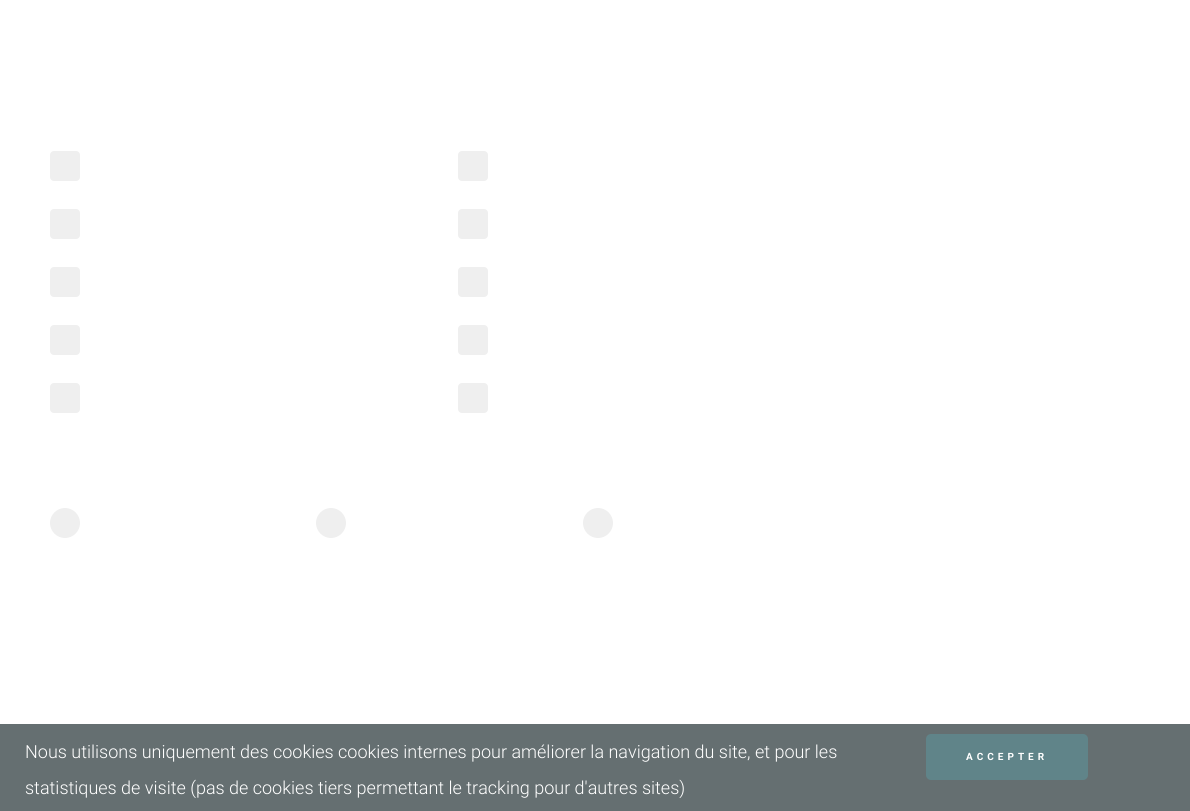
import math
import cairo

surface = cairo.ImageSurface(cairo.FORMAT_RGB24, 1190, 811)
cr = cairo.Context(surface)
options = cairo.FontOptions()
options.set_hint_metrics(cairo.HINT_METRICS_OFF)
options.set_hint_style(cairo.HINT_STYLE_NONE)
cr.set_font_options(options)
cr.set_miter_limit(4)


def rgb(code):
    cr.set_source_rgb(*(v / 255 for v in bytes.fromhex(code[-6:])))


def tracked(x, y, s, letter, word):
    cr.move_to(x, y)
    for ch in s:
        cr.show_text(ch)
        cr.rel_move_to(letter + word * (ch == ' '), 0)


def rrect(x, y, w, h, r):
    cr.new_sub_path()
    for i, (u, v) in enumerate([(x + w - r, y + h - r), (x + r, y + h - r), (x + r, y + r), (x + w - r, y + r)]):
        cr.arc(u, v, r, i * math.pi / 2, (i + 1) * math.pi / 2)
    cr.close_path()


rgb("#ffffff")
cr.paint()
rgb("#efefef")
rrect(50, 151, 30, 30, 4)
cr.fill()
rrect(50, 209, 30, 30, 4)
cr.fill()
rrect(50, 267, 30, 30, 4)
cr.fill()
rrect(50, 325, 30, 30, 4)
cr.fill()
rrect(50, 383, 30, 30, 4)
cr.fill()
rrect(458, 151, 30, 30, 4)
cr.fill()
rrect(458, 209, 30, 30, 4)
cr.fill()
rrect(458, 267, 30, 30, 4)
cr.fill()
rrect(458, 325, 30, 30, 4)
cr.fill()
rrect(458, 383, 30, 30, 4)
cr.fill()
cr.arc(65, 523, 15, 0, 2 * math.pi)
cr.fill()
cr.arc(331, 523, 15, 0, 2 * math.pi)
cr.fill()
cr.arc(598, 523, 15, 0, 2 * math.pi)
cr.fill()
rgb("#656f71")
cr.rectangle(0, 724, 1190, 87)
cr.fill()
rgb("#608489")
rrect(926, 734, 162, 46, 5)
cr.fill()
cr.select_font_face("Roboto Light")
cr.set_font_size(18)
rgb("#ffffff")
cr.move_to(25, 758)
cr.show_text("Nous utilisons uniquement des cookies cookies internes pour améliorer la navigation du site, et pour les")
cr.move_to(25, 794)
cr.show_text("statistiques de visite (pas de cookies tiers permettant le tracking pour d'autres sites)")
cr.select_font_face("Roboto", cairo.FONT_SLANT_NORMAL, cairo.FONT_WEIGHT_BOLD)
cr.set_font_size(10)
tracked(966, 760, "ACCEPTER", 4, 0)
surface.write_to_png("page.png")
